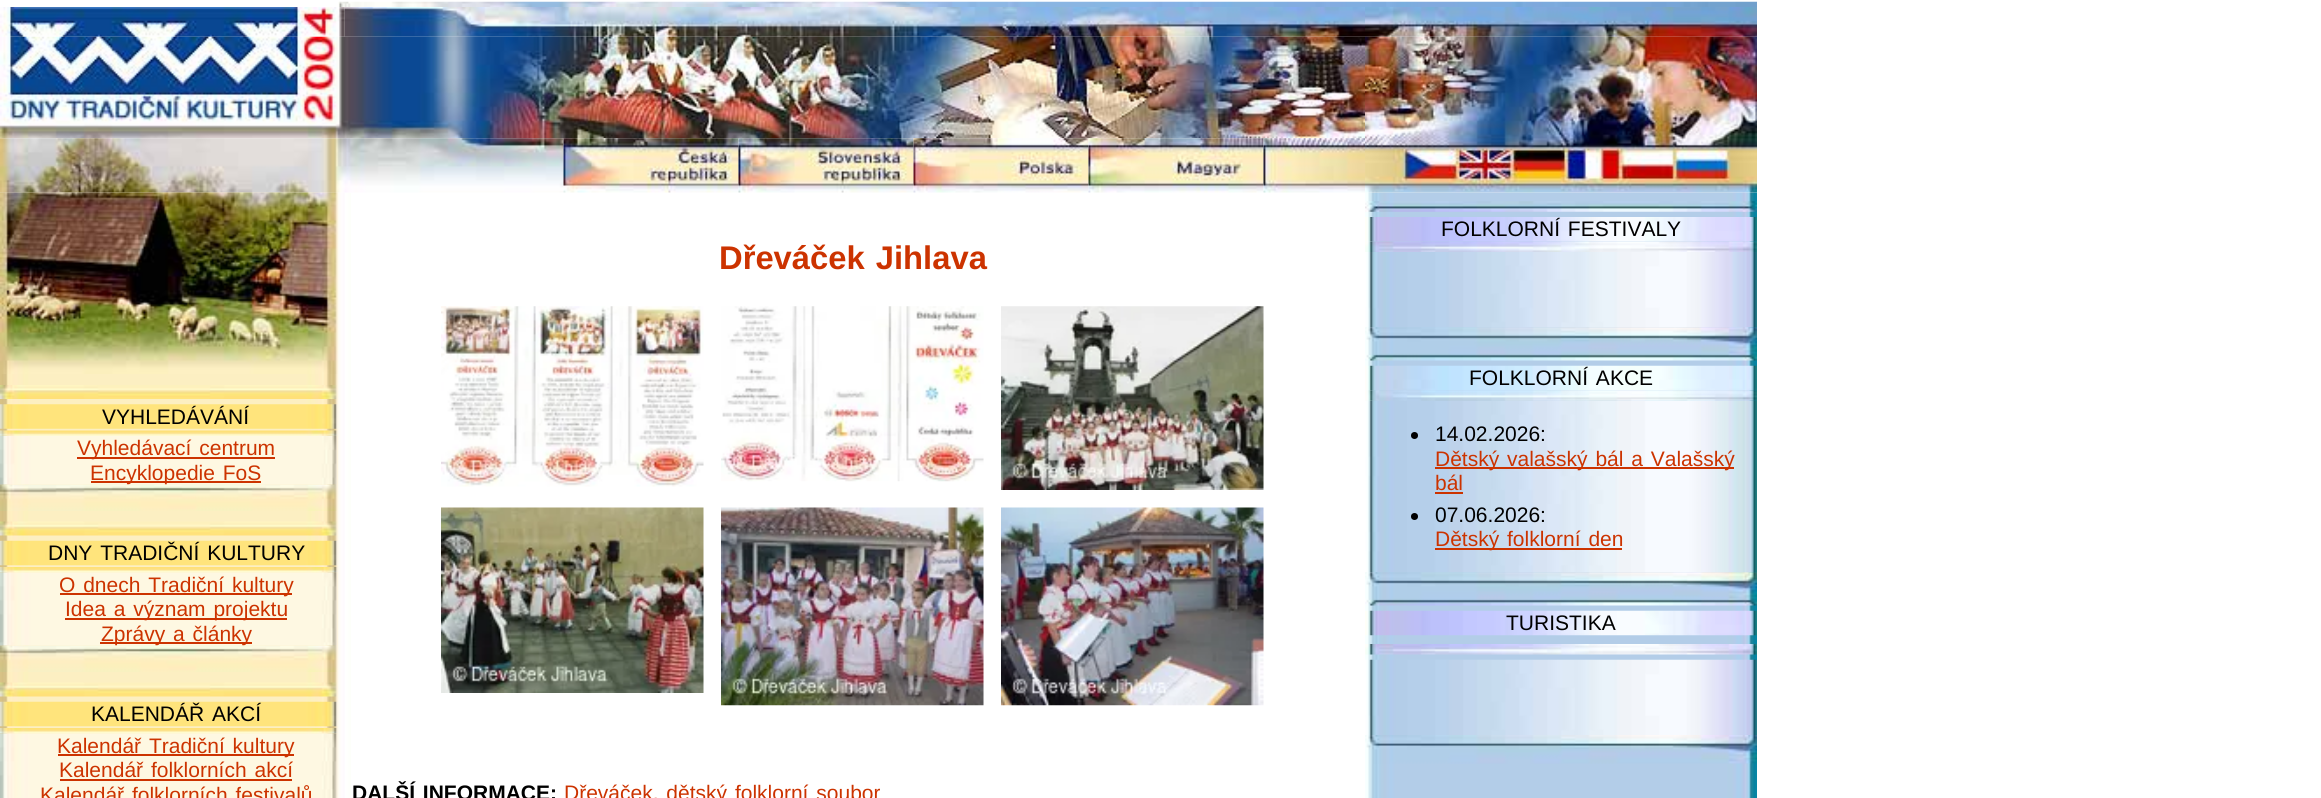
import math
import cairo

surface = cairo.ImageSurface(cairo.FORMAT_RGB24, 2321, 798)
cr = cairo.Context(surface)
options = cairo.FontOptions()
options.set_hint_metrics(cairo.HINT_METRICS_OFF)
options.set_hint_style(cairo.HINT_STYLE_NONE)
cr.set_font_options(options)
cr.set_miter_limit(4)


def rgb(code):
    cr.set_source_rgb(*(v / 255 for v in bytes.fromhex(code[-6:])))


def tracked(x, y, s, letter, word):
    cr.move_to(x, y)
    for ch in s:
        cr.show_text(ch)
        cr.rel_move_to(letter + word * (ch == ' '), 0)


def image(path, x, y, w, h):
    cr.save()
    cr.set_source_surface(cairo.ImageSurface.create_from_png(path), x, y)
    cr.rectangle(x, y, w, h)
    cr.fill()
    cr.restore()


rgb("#ffffff")
cr.paint()
image("img/1.png", 338, 1, 1419, 6)
image("img/2.png", 0, 7, 345, 30)
image("img/3.png", 344, 7, 1021, 30)
image("img/4.png", 1365, 7, 392, 30)
image("img/5.png", 0, 36, 1365, 103)
image("img/33.png", 1365, 192, 392, 606)
image("img/6.png", 1365, 36, 392, 157)
image("img/13.png", 0, 192, 351, 606)
image("img/7.png", 0, 138, 564, 55)
image("img/8.png", 563, 138, 176, 55)
image("img/9.png", 738, 138, 176, 55)
image("img/10.png", 913, 138, 176, 55)
image("img/11.png", 1088, 138, 176, 55)
image("img/12.png", 1263, 138, 102, 55)
image("img/14.png", 0, 192, 338, 182)
image("img/15.png", 0, 385, 337, 14)
image("img/16.png", 0, 404, 338, 25)
image("img/18.png", 0, 435, 337, 50)
image("img/17.png", 0, 430, 338, 6)
rgb("#cc3300")
cr.rectangle(77, 457, 198, 2)
cr.fill()
cr.rectangle(91, 481, 170, 2)
cr.fill()
image("img/20.png", 0, 521, 337, 15)
image("img/21.png", 0, 540, 338, 26)
image("img/23.png", 0, 572, 337, 74)
image("img/22.png", 0, 567, 338, 6)
for x, y, w, h, color in [
    (60, 593, 232, 2, "#cc3300"),
    (65, 618, 222, 2, "#cc3300"),
    (100, 642, 152, 2, "#cc3300"),
]:
    rgb(color)
    cr.rectangle(x, y, w, h)
    cr.fill()
image("img/20.png", 0, 682, 337, 15)
image("img/21.png", 0, 701, 338, 26)
image("img/26.png", 0, 733, 338, 65)
image("img/25.png", 0, 728, 338, 6)
cr.rectangle(58, 754, 236, 2)
cr.fill()
cr.rectangle(60, 779, 232, 2)
cr.fill()
image("img/27.png", 441, 306, 263, 181)
image("img/28.png", 721, 306, 263, 176)
image("img/29.png", 1001, 306, 263, 184)
image("img/30.png", 441, 507, 263, 186)
image("img/31.png", 721, 507, 263, 199)
image("img/32.png", 1001, 507, 263, 199)
image("img/34.png", 1365, 201, 392, 11)
image("img/35.png", 1365, 217, 392, 25)
image("img/36.png", 1365, 241, 392, 11)
image("img/37.png", 1365, 252, 392, 76)
image("img/38.png", 1365, 327, 392, 34)
image("img/39.png", 1365, 365, 392, 26)
image("img/41.png", 1365, 400, 392, 173)
image("img/40.png", 1365, 390, 392, 11)
rgb("#000000")
cr.arc(1414.5, 435.5, 3.5, 0, 2 * math.pi)
cr.fill()
rgb("#cc3300")
cr.rectangle(1435, 467, 299, 2)
cr.fill()
cr.rectangle(1435, 492, 28, 2)
cr.fill()
rgb("#000000")
cr.arc(1414.5, 516.5, 3.5, 0, 2 * math.pi)
cr.fill()
rgb("#cc3300")
cr.rectangle(1435, 548, 187, 2)
cr.fill()
image("img/42.png", 1365, 572, 392, 34)
image("img/43.png", 1365, 610, 392, 26)
image("img/44.png", 1365, 644, 392, 11)
image("img/45.png", 1365, 659, 392, 76)
image("img/46.png", 1365, 735, 392, 29)
cr.select_font_face("Liberation Sans")
cr.set_font_size(21)
rgb("#000000")
cr.move_to(102, 424)
cr.show_text("VYHLEDÁVÁNÍ")
rgb("#cc3300")
tracked(77, 455, "Vyhledávací centrum", 0, 2)
tracked(90, 480, "Encyklopedie FoS", 0, 2)
image("img/19.png", 0, 484, 337, 27)
rgb("#000000")
tracked(48, 560, "DNY TRADIČNÍ KULTURY", 0, 2)
rgb("#cc3300")
for x, y, s in [
    (59, 592, "O dnech Tradiční kultury"),
    (65, 616, "Idea a význam projektu"),
    (101, 641, "Zprávy a články"),
]:
    tracked(x, y, s, 0, 2)
image("img/24.png", 0, 645, 337, 27)
rgb("#000000")
tracked(91, 721, "KALENDÁŘ AKCÍ", 0, 2)
rgb("#cc3300")
for x, y, s in [
    (57, 753, "Kalendář Tradiční kultury"),
    (59, 777, "Kalendář folklorních akcí"),
    (40, 802, "Kalendář folklorních festivalů"),
]:
    tracked(x, y, s, 0, 2)
cr.select_font_face("Liberation Sans", cairo.FONT_SLANT_NORMAL, cairo.FONT_WEIGHT_BOLD)
cr.set_font_size(32.75)
tracked(719, 269, "Dřeváček Jihlava", 0, 2)
cr.set_font_size(21)
rgb("#000000")
tracked(352, 800, "DALŠÍ INFORMACE:", 0, 2)
cr.select_font_face("Liberation Sans")
rgb("#cc3300")
tracked(564, 800, "Dřeváček, dětský folklorní soubor", 0, 2)
rgb("#000000")
tracked(1441, 236, "FOLKLORNÍ FESTIVALY", 0, 2)
tracked(1469, 385, "FOLKLORNÍ AKCE", 0, 2)
cr.move_to(1435, 441)
cr.show_text("14.02.2026:")
rgb("#cc3300")
tracked(1435, 466, "Dětský valašský bál a Valašský", 0, 2)
cr.move_to(1435, 490)
cr.show_text("bál")
rgb("#000000")
cr.move_to(1435, 522)
cr.show_text("07.06.2026:")
rgb("#cc3300")
tracked(1435, 546, "Dětský folklorní den", 0, 2)
rgb("#000000")
cr.move_to(1506, 630)
cr.show_text("TURISTIKA")
surface.write_to_png("page.png")
